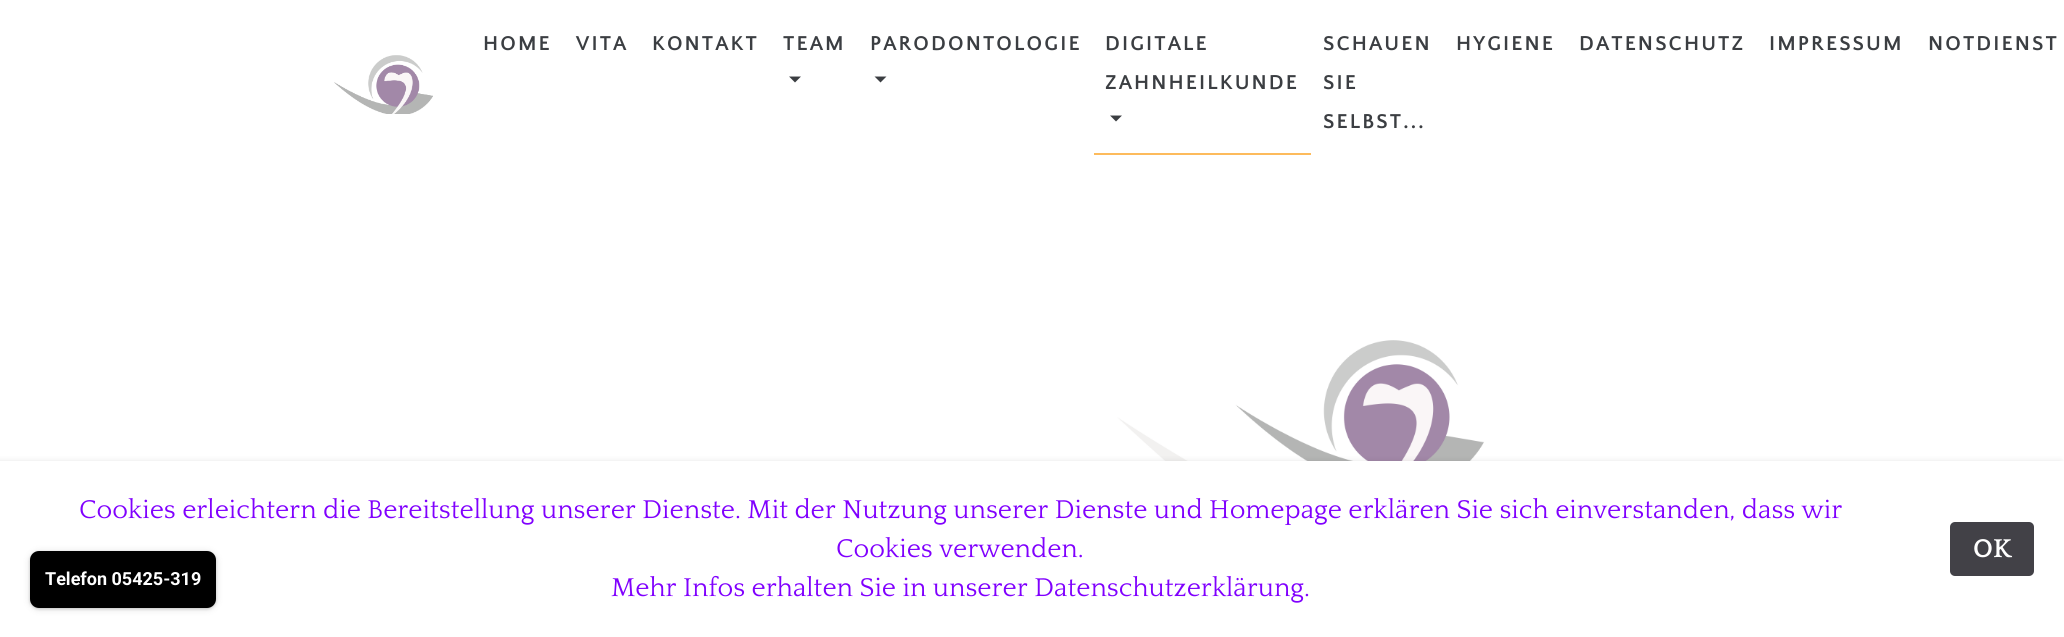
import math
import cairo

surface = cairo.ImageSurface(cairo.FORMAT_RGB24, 2064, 637)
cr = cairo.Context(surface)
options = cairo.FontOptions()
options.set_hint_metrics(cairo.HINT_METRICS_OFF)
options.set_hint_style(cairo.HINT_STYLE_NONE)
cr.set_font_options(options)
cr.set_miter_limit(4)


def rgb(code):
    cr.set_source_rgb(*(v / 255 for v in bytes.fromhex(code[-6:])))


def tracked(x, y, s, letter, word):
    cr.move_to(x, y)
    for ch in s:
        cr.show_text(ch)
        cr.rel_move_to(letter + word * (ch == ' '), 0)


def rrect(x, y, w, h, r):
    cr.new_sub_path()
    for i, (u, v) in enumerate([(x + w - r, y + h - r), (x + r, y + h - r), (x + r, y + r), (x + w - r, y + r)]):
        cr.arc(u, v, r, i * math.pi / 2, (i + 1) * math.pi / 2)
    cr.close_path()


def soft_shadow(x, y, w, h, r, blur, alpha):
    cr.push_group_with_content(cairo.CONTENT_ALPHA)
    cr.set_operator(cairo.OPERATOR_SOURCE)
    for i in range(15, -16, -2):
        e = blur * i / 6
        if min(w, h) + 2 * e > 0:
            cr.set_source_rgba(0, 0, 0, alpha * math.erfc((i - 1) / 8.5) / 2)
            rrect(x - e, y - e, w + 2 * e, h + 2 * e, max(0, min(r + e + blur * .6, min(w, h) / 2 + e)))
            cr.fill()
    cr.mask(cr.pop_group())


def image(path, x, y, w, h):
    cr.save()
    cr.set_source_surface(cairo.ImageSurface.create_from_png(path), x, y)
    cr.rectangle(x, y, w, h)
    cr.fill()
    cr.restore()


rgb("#ffffff")
cr.paint()
image("img/1.png", 334, 55, 99, 59)
rgb("#3b3e42")
cr.new_path()
cr.move_to(789, 76.5)
cr.line_to(801, 76.5)
cr.line_to(795, 82.5)
cr.close_path()
cr.fill()
cr.new_path()
cr.move_to(874.5, 76.5)
cr.line_to(886.5, 76.5)
cr.line_to(880.5, 82.5)
cr.close_path()
cr.fill()
rgb("#fdbb5c")
cr.rectangle(1094, 153, 217, 2)
cr.fill()
rgb("#3b3e42")
cr.new_path()
cr.move_to(1110, 115.5)
cr.line_to(1122, 115.5)
cr.line_to(1116, 121.5)
cr.close_path()
cr.fill()
image("img/2.png", 1098, 340, 632, 121)
rgb("#000000")
soft_shadow(-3, 461, 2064, 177, 0, 3, 0.1)
rgb("#ffffff")
cr.rectangle(0, 461, 2064, 176)
cr.fill()
rgb("#424147")
rrect(1950, 522, 84, 54, 5)
cr.fill()
rgb("#000000")
soft_shadow(30, 552, 186, 57, 9, 1.5, 0.2)
soft_shadow(30, 552, 186, 57, 9, 4, 0.1)
rgb("#000000")
rrect(30, 551, 186, 57, 9)
cr.fill()
cr.select_font_face("Quattrocento Sans", cairo.FONT_SLANT_NORMAL, cairo.FONT_WEIGHT_BOLD)
cr.set_font_size(21)
rgb("#3b3e42")
for x, y, s in [
    (483, 50, "HOME"),
    (576, 50, "VITA"),
    (652, 50, "KONTAKT"),
    (783, 50, "TEAM"),
    (870, 50, "PARODONTOLOGIE"),
    (1105, 50, "DIGITALE"),
    (1105, 89, "ZAHNHEILKUNDE"),
    (1323, 50, "SCHAUEN"),
    (1323, 89, "SIE"),
    (1323, 128, "SELBST..."),
    (1456, 50, "HYGIENE"),
    (1579, 50, "DATENSCHUTZ"),
    (1769, 50, "IMPRESSUM"),
    (1928, 50, "NOTDIENST"),
]:
    tracked(x, y, s, 2.1, 0)
cr.select_font_face("Quattrocento")
cr.set_font_size(27)
rgb("#8000fe")
for x, y, s in [
    (79, 518, "Cookies erleichtern die Bereitstellung unserer Dienste. Mit der Nutzung unserer Dienste und Homepage erklären Sie sich einverstanden, dass wir"),
    (836, 557, "Cookies verwenden."),
    (611, 596, "Mehr Infos erhalten Sie in unserer Datenschutzerklärung."),
]:
    cr.move_to(x, y)
    cr.show_text(s)
cr.select_font_face("Quattrocento", cairo.FONT_SLANT_NORMAL, cairo.FONT_WEIGHT_BOLD)
rgb("#ffffff")
cr.move_to(1973, 557)
cr.show_text("OK")
cr.select_font_face("Roboto", cairo.FONT_SLANT_NORMAL, cairo.FONT_WEIGHT_BOLD)
cr.set_font_size(18)
cr.move_to(45, 585)
cr.show_text("Telefon 05425-319")
surface.write_to_png("page.png")
